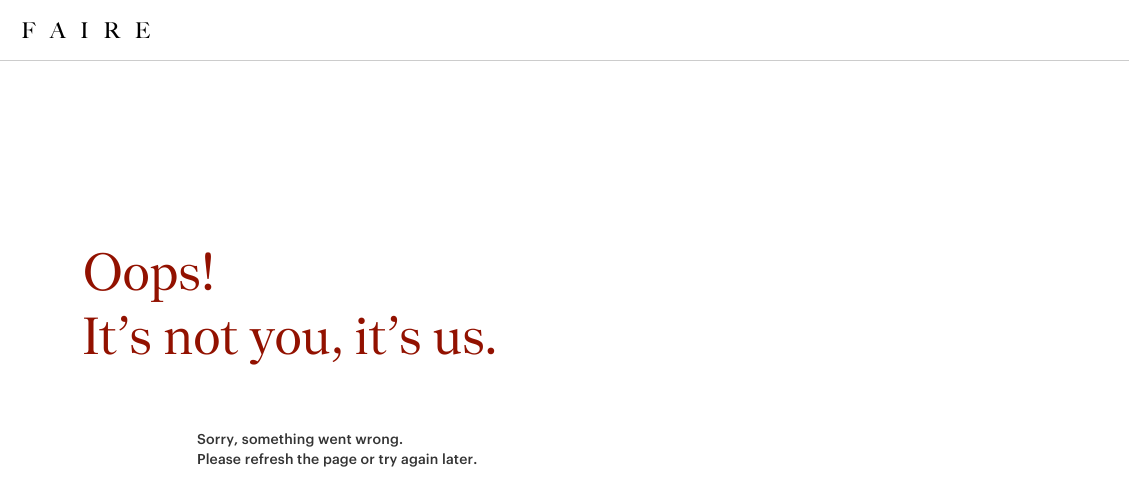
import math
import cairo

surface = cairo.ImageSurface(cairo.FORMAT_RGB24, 1129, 486)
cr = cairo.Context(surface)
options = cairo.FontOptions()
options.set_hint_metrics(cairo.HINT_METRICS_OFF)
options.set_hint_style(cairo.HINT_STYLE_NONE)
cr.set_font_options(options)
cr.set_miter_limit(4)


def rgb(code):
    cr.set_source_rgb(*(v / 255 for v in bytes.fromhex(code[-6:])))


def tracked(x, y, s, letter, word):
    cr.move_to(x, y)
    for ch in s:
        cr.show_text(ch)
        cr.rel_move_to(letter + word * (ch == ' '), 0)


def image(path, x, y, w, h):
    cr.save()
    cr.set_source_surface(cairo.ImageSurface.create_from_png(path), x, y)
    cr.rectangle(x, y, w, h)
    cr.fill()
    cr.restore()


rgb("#ffffff")
cr.paint()
rgb("#cccccc")
cr.rectangle(0, 60, 1129, 1)
cr.fill()
image("img/1.png", 22, 22, 128, 16)
cr.select_font_face("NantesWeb")
cr.set_font_size(52)
rgb("#921100")
cr.move_to(83, 290)
cr.show_text("Oops!")
cr.move_to(83, 354)
cr.show_text("It’s not you, it’s us.")
cr.select_font_face("Graphik Medium")
cr.set_font_size(14)
rgb("#333333")
tracked(197, 444, "Sorry, something went wrong.", 0.15, 0)
tracked(197, 464, "Please refresh the page or try again later.", 0.15, 0)
surface.write_to_png("page.png")
